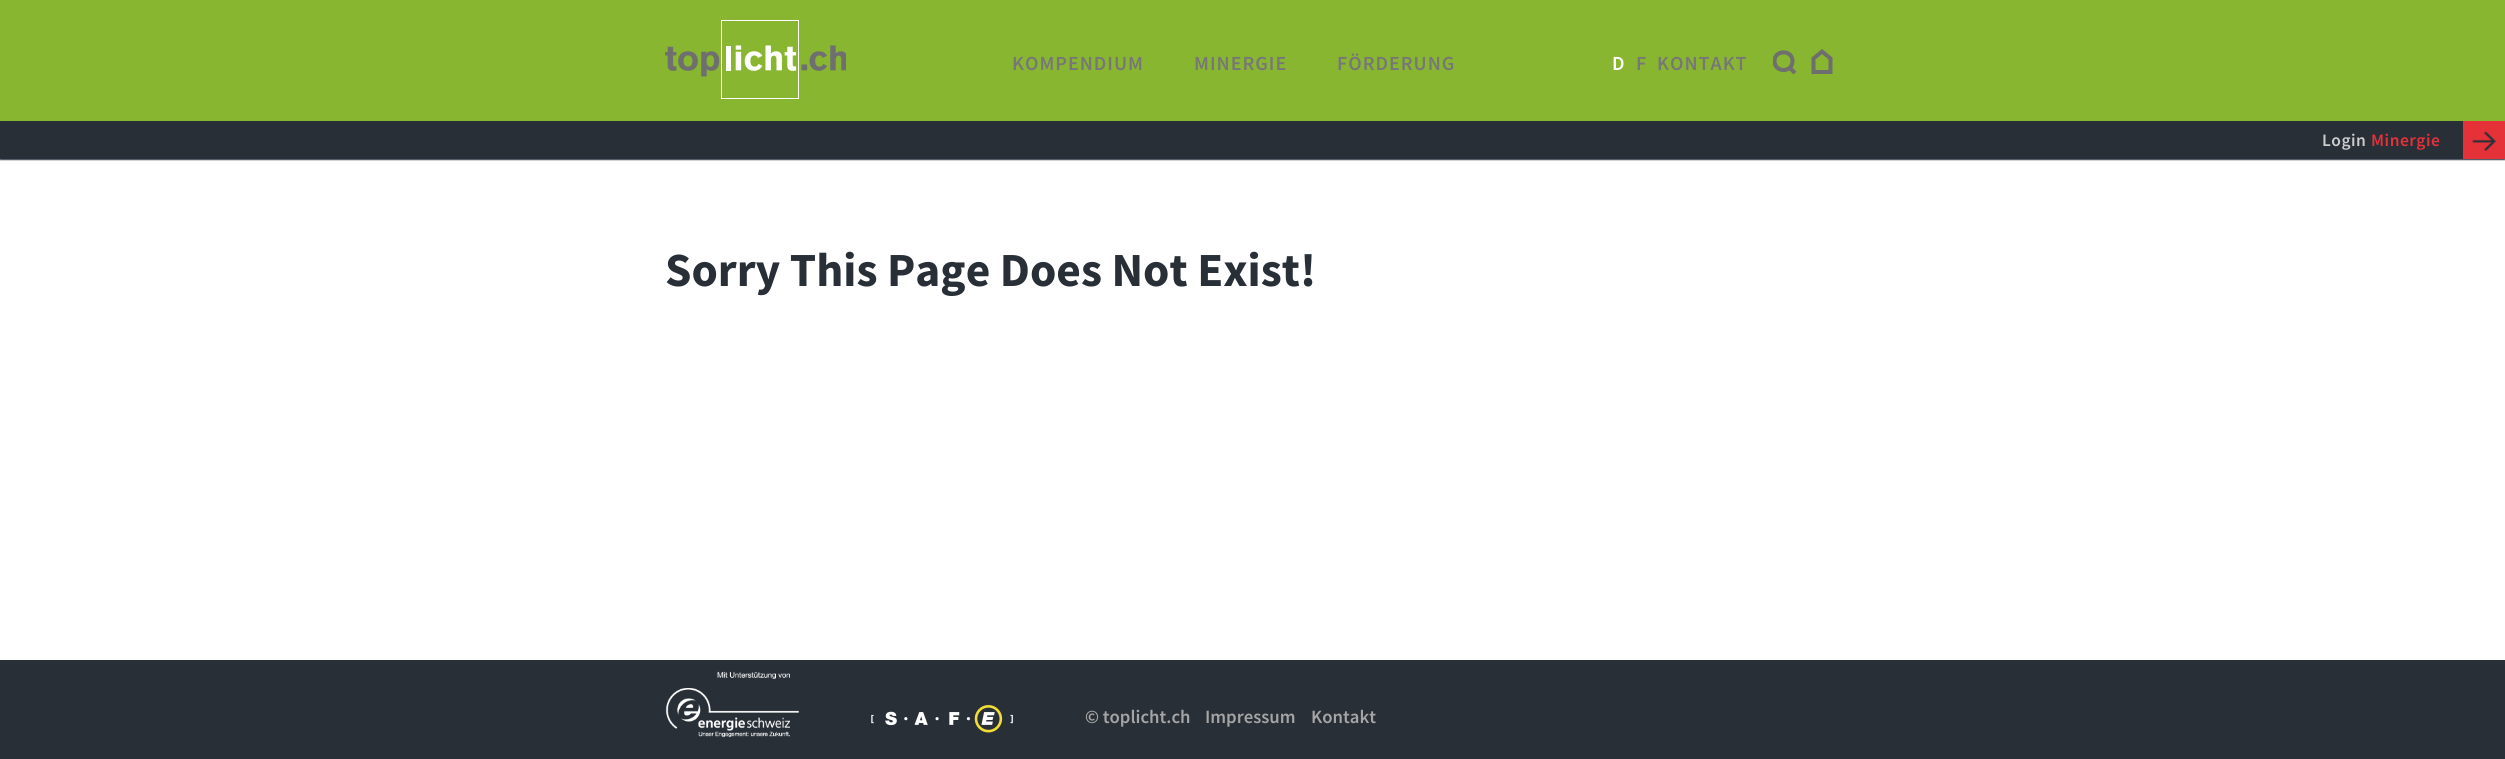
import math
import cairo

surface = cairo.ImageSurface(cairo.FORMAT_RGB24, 2505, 759)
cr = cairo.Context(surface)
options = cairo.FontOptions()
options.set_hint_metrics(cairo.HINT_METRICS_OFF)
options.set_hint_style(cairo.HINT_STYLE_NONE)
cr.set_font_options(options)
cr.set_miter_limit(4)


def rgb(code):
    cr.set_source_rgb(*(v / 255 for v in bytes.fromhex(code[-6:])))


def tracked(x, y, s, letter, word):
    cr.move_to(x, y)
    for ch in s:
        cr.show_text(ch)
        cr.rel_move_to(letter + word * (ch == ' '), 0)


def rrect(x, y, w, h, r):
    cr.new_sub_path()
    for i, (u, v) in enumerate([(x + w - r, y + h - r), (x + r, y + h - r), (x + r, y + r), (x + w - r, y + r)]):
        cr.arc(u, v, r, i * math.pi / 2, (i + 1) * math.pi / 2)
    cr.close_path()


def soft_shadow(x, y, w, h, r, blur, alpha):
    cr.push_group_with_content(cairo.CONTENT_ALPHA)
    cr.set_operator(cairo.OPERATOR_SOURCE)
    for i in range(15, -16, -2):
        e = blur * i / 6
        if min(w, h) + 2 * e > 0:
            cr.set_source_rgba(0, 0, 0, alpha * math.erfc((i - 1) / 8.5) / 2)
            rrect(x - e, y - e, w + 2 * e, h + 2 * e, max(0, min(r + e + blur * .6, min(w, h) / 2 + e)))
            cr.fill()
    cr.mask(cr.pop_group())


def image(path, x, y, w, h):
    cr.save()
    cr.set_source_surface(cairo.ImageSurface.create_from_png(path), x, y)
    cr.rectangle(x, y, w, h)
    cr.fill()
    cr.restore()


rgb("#ffffff")
cr.paint()
rgb("#88b630")
cr.rectangle(0, 0, 2505, 121)
cr.fill()
image("img/1.png", 665, 20, 181, 79)
cr.save()
cr.rectangle(1773, 50, 23, 25)
cr.clip()
cr.new_path()
cr.move_to(1792.5, 61)
cr.curve_to(1792.5, 73, 1774.5, 73, 1774.5, 61)
cr.curve_to(1774.5, 49.5, 1792.5, 49.5, 1792.5, 61)
cr.close_path()
rgb("#6f6f6f")
cr.set_line_width(4.1)
cr.stroke()
cr.restore()
cr.new_path()
cr.move_to(1789.5, 67.5)
cr.line_to(1795, 73)
rgb("#6f6f6f")
cr.set_line_width(4.1)
cr.stroke()
cr.new_path()
cr.move_to(1830.5, 58.5)
cr.line_to(1830.5, 72)
cr.line_to(1813.5, 72)
cr.line_to(1813.5, 58.5)
cr.line_to(1822, 51.5)
cr.close_path()
rgb("#6e6e6e")
cr.set_line_width(4)
cr.stroke()
rgb("#3d4855")
soft_shadow(0, 123, 2505, 37, 0, 0.5, 1)
rgb("#282f37")
cr.rectangle(0, 121, 2463, 38)
cr.fill()
rgb("#e53138")
cr.rectangle(2463, 121, 42, 38)
cr.fill()
image("img/2.png", 2472, 131, 24, 21)
rgb("#282f37")
cr.rectangle(0, 660, 2505, 99)
cr.fill()
image("img/3.png", 665, 671, 134, 67)
image("img/4.png", 871, 705, 142, 28)
cr.select_font_face("Source Sans Pro SemiBold")
cr.set_font_size(20)
rgb("#777777")
for x, y, s in [
    (1012, 70, "KOMPENDIUM"),
    (1194, 70, "MINERGIE"),
    (1337, 70, "FÖRDERUNG"),
]:
    tracked(x, y, s, 1, 0)
rgb("#ffffff")
tracked(1612, 70, "D", 1, 0)
rgb("#777777")
tracked(1636, 70, "F", 1, 0)
tracked(1657, 70, "KONTAKT", 1, 0)
cr.set_font_size(17.5)
rgb("#cccccc")
tracked(2322, 146, "Login", 0.5, 0)
rgb("#e53138")
tracked(2371, 146, "Minergie", 0.5, 0)
cr.select_font_face("Source Sans Pro", cairo.FONT_SLANT_NORMAL, cairo.FONT_WEIGHT_BOLD)
cr.set_font_size(47.5)
rgb("#282f37")
cr.move_to(665, 286)
cr.show_text("Sorry This Page Does Not Exist!")
cr.select_font_face("Source Sans Pro SemiBold")
cr.set_font_size(18.75)
rgb("#a5a5a5")
for x, y, s in [
    (1085, 723, "© toplicht.ch"),
    (1205, 723, "Impressum"),
    (1311, 723, "Kontakt"),
]:
    cr.move_to(x, y)
    cr.show_text(s)
surface.write_to_png("page.png")
